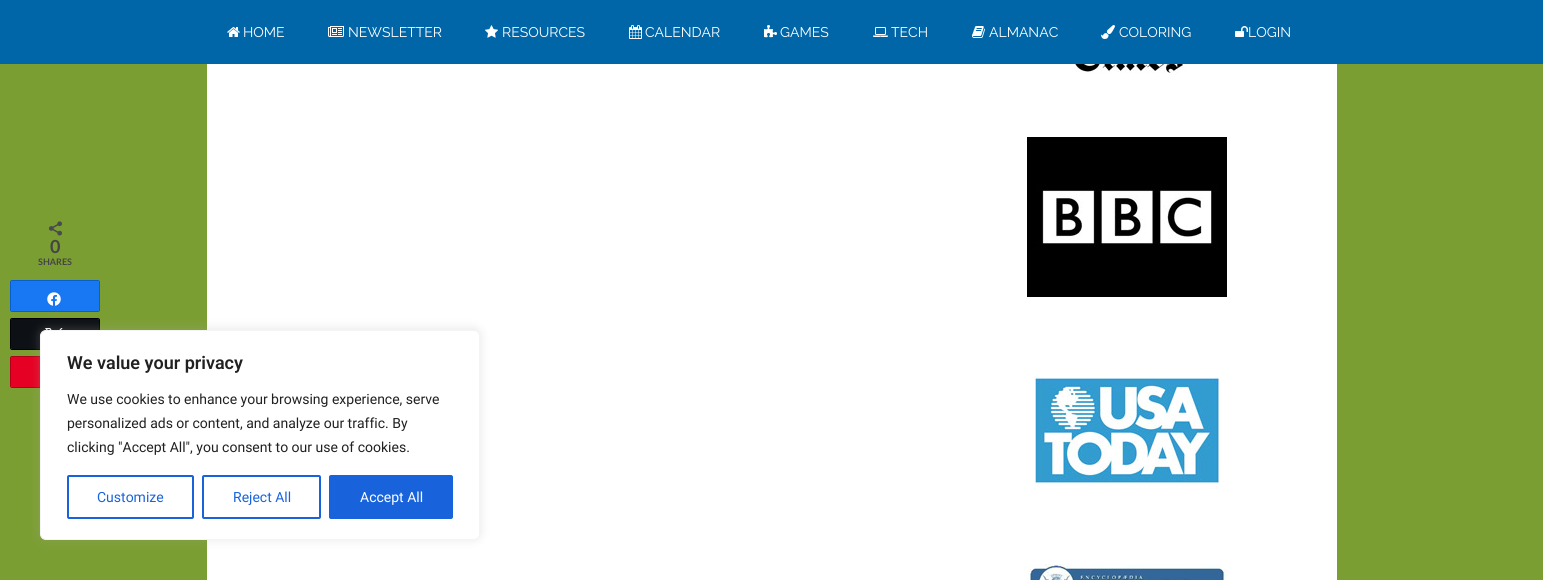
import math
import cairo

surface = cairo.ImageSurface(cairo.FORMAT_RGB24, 1543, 580)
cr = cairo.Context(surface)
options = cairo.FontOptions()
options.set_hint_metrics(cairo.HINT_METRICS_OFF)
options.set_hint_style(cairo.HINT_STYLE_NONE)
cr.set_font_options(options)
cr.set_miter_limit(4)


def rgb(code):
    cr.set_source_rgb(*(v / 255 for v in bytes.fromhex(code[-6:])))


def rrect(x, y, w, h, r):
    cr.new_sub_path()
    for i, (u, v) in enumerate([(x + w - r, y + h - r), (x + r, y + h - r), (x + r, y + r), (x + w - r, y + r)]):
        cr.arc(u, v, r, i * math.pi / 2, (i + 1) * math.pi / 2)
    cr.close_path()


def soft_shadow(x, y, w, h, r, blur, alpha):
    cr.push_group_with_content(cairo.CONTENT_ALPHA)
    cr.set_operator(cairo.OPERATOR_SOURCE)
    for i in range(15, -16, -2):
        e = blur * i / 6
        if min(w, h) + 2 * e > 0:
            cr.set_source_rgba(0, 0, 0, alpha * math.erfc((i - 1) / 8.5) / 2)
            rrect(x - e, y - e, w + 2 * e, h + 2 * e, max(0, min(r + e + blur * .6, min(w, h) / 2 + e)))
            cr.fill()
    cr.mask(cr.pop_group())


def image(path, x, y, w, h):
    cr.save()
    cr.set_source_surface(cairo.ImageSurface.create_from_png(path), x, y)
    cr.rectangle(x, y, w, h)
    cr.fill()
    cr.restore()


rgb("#7b9e33")
cr.paint()
rgb("#0066a8")
cr.rectangle(0, 0, 1543, 64)
cr.fill()
image("img/1.png", 227, 27, 13, 10)
image("img/2.png", 328, 26, 16, 11)
image("img/3.png", 485, 25, 13, 13)
image("img/4.png", 629, 25, 13, 14)
image("img/5.png", 764, 25, 13, 13)
image("img/6.png", 873, 27, 15, 10)
image("img/7.png", 972, 26, 13, 12)
image("img/8.png", 1101, 25, 14, 14)
image("img/9.png", 1235, 26, 13, 11)
rgb("#ffffff")
cr.rectangle(207, 64, 1130, 516)
cr.fill()
image("img/10.png", 1035, 64, 184, 9)
image("img/11.png", 1027, 137, 200, 160)
image("img/12.png", 1035, 377, 184, 112)
image("img/13.png", 1027, 564, 200, 16)
image("img/14.png", 48, 221, 14, 15)
rrect(10.5, 280.5, 89, 31, 1.5)
rgb("#0b5fcc")
cr.set_line_width(1)
cr.stroke()
rgb("#1877f2")
rrect(11, 281, 88, 30, 1)
cr.fill()
image("img/15.png", 47, 292, 14, 14)
rrect(10.5, 318.5, 89, 31, 1.5)
rgb("#000000")
cr.stroke()
rgb("#0d1014")
rrect(11, 319, 88, 30, 1)
cr.fill()
image("img/16.png", 45, 328, 18, 2)
rrect(10.5, 356.5, 89, 31, 1.5)
rgb("#b3001b")
cr.stroke()
rgb("#e60023")
rrect(11, 357, 88, 30, 1)
cr.fill()
rgb("#acabab")
soft_shadow(40, 329, 440, 210, 6, 5, 0.3)
rgb("#ffffff")
rrect(40.5, 330.5, 439, 209, 5.5)
cr.fill_preserve()
rgb("#f4f4f4")
cr.stroke()
rrect(68, 476, 125, 42, 1)
rgb("#1863dc")
cr.set_line_width(2)
cr.stroke()
rrect(203, 476, 117, 42, 1)
cr.stroke()
rrect(330, 476, 122, 42, 1)
cr.fill_preserve()
cr.stroke()
cr.select_font_face("Raleway Thin")
cr.set_font_size(14)
rgb("#ffffff")
for x, y, s in [
    (243, 37, "HOME"),
    (348, 37, "NEWSLETTER"),
    (502, 37, "RESOURCES"),
    (645, 37, "CALENDAR"),
    (780, 37, "GAMES"),
    (891, 37, "TECH"),
    (989, 37, "ALMANAC"),
    (1119, 37, "COLORING"),
    (1248, 37, "LOGIN"),
]:
    cr.move_to(x, y)
    cr.show_text(s)
cr.select_font_face("Lato", cairo.FONT_SLANT_NORMAL, cairo.FONT_WEIGHT_BOLD)
cr.set_font_size(18)
rgb("#444444")
cr.move_to(50, 253)
cr.show_text("0")
cr.set_font_size(9)
cr.move_to(38, 265)
cr.show_text("SHARES")
cr.select_font_face("Roboto SemiBold")
cr.set_font_size(18)
rgb("#212121")
cr.move_to(67, 369)
cr.show_text("We value your privacy")
cr.select_font_face("Roboto")
cr.set_font_size(14)
for x, y, s in [
    (67, 404, "We use cookies to enhance your browsing experience, serve"),
    (67, 428, "personalized ads or content, and analyze our traffic. By"),
    (67, 452, "clicking \"Accept All\", you consent to our use of cookies."),
]:
    cr.move_to(x, y)
    cr.show_text(s)
rgb("#1863dc")
cr.move_to(97, 502)
cr.show_text("Customize")
cr.move_to(233, 502)
cr.show_text("Reject All")
rgb("#ffffff")
cr.move_to(360, 502)
cr.show_text("Accept All")
surface.write_to_png("page.png")
